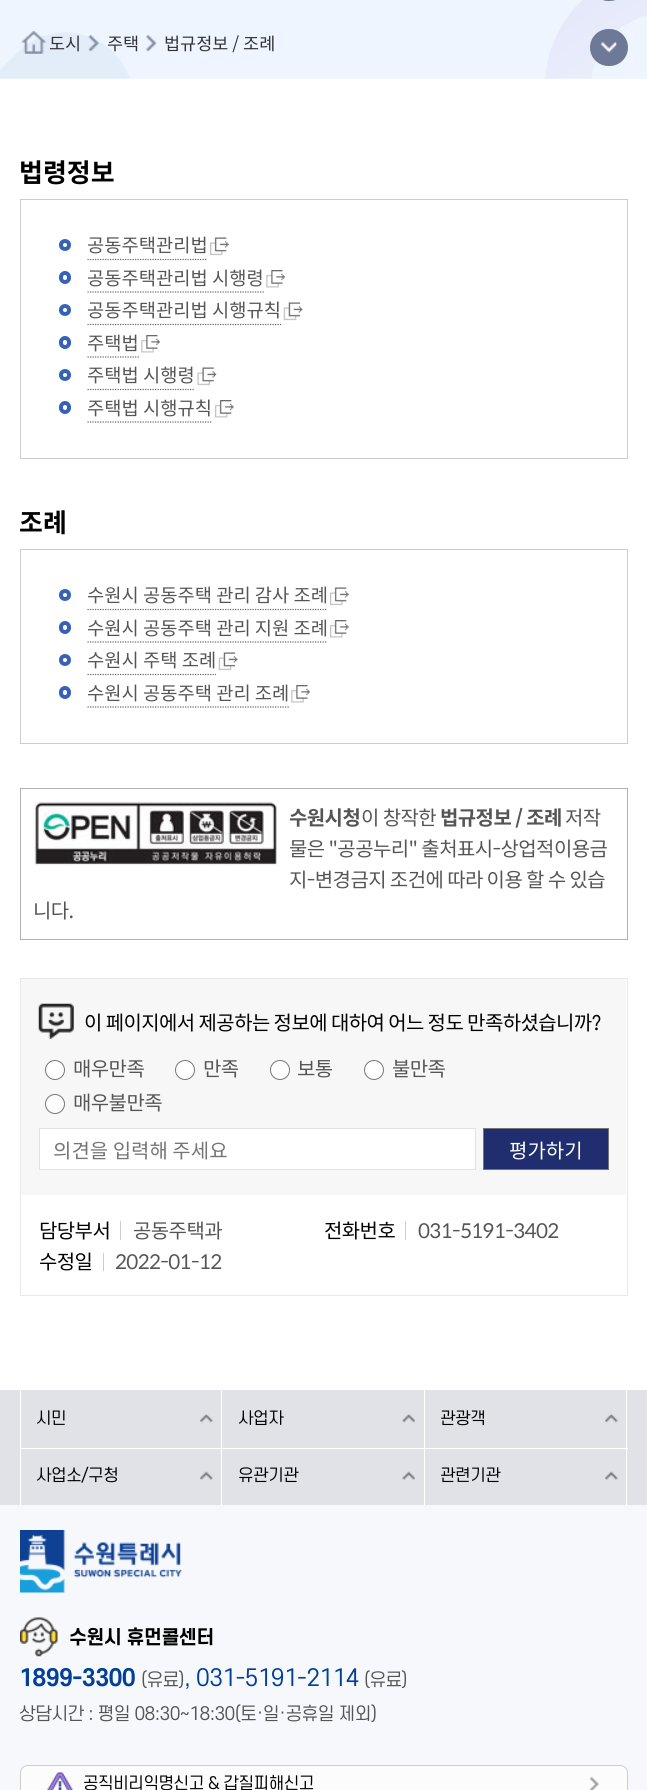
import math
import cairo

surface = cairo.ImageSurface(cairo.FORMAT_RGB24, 647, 1790)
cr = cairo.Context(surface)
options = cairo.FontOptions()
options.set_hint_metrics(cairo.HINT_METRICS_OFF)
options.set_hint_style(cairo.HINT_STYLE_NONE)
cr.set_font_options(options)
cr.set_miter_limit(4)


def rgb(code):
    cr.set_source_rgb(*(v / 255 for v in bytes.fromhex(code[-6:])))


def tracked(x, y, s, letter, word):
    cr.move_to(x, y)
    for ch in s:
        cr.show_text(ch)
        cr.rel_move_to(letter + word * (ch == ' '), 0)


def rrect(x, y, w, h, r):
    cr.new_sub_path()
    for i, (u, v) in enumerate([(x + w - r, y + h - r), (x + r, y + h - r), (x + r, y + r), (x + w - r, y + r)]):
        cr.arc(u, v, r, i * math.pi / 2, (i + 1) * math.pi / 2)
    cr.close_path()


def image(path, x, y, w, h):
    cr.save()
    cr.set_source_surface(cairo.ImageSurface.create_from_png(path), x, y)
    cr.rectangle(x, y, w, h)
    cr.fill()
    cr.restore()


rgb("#ffffff")
cr.paint()
image("img/1.png", 0, 0, 647, 79)
rgb("#6d7996")
rrect(590, -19, 38, 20, 18.5)
cr.fill()
image("img/2.png", 21, 31, 26, 23)
image("img/3.png", 88, 35, 11, 17)
image("img/4.png", 146, 35, 11, 17)
rrect(590, 29, 38, 37, 18.5)
cr.fill()
image("img/5.png", 600, 41, 17, 12)
cr.rectangle(20.5, 199.5, 607, 259)
rgb("#cccccc")
cr.set_line_width(1)
cr.stroke()
cr.arc(65, 245, 4, 0, 2 * math.pi)
rgb("#3761b6")
cr.set_line_width(4)
cr.stroke()
image("img/6.png", 210, 237, 19, 19)
cr.new_path()
cr.move_to(87.5, 259.5)
cr.line_to(207.5, 259.5)
rgb("#666666")
cr.set_line_width(1.2)
cr.set_dash([1.25, 1.25])
cr.stroke()
rrect(61, 273, 8, 9, 4)
rgb("#3761b6")
cr.set_line_width(4)
cr.set_dash([])
cr.stroke()
image("img/7.png", 266, 270, 19, 18)
cr.new_path()
cr.move_to(87.5, 292)
cr.line_to(264, 292)
rgb("#666666")
cr.set_line_width(1.2)
cr.set_dash([1.25, 1.25])
cr.stroke()
cr.arc(65, 310, 4, 0, 2 * math.pi)
rgb("#3761b6")
cr.set_line_width(4)
cr.set_dash([])
cr.stroke()
image("img/8.png", 283, 302, 20, 19)
cr.new_path()
cr.move_to(87.5, 324.5)
cr.line_to(281, 324.5)
rgb("#666666")
cr.set_line_width(1.2)
cr.set_dash([1.25, 1.25])
cr.stroke()
rrect(61, 338, 8, 9, 4)
rgb("#3761b6")
cr.set_line_width(4)
cr.set_dash([])
cr.stroke()
image("img/7.png", 141, 335, 19, 18)
cr.new_path()
cr.move_to(87.5, 357)
cr.line_to(139, 357)
rgb("#666666")
cr.set_line_width(1.2)
cr.set_dash([1.25, 1.25])
cr.stroke()
cr.arc(65, 375, 4, 0, 2 * math.pi)
rgb("#3761b6")
cr.set_line_width(4)
cr.set_dash([])
cr.stroke()
image("img/9.png", 197, 367, 20, 19)
cr.new_path()
cr.move_to(87.5, 389.5)
cr.line_to(195, 389.5)
rgb("#666666")
cr.set_line_width(1.2)
cr.set_dash([1.25, 1.25])
cr.stroke()
rrect(61, 403, 8, 9, 4)
rgb("#3761b6")
cr.set_line_width(4)
cr.set_dash([])
cr.stroke()
image("img/10.png", 215, 400, 19, 18)
cr.new_path()
cr.move_to(87.5, 422)
cr.line_to(212.5, 422)
rgb("#666666")
cr.set_line_width(1.2)
cr.set_dash([1.25, 1.25])
cr.stroke()
cr.rectangle(20.5, 549.5, 607, 194)
rgb("#cccccc")
cr.set_line_width(1)
cr.set_dash([])
cr.stroke()
cr.arc(65, 595, 4, 0, 2 * math.pi)
rgb("#3761b6")
cr.set_line_width(4)
cr.stroke()
image("img/6.png", 330, 587, 19, 19)
cr.new_path()
cr.move_to(87.5, 609.5)
cr.line_to(327.5, 609.5)
rgb("#666666")
cr.set_line_width(1.2)
cr.set_dash([1.25, 1.25])
cr.stroke()
rrect(61, 623, 8, 9, 4)
rgb("#3761b6")
cr.set_line_width(4)
cr.set_dash([])
cr.stroke()
image("img/10.png", 330, 620, 19, 18)
cr.new_path()
cr.move_to(87.5, 642)
cr.line_to(327.5, 642)
rgb("#666666")
cr.set_line_width(1.2)
cr.set_dash([1.25, 1.25])
cr.stroke()
cr.arc(65, 660, 4, 0, 2 * math.pi)
rgb("#3761b6")
cr.set_line_width(4)
cr.set_dash([])
cr.stroke()
image("img/8.png", 218, 652, 20, 19)
cr.new_path()
cr.move_to(87.5, 674.5)
cr.line_to(216, 674.5)
rgb("#666666")
cr.set_line_width(1.2)
cr.set_dash([1.25, 1.25])
cr.stroke()
rrect(61, 688, 8, 9, 4)
rgb("#3761b6")
cr.set_line_width(4)
cr.set_dash([])
cr.stroke()
image("img/7.png", 291, 685, 19, 18)
cr.new_path()
cr.move_to(87.5, 707)
cr.line_to(289, 707)
rgb("#666666")
cr.set_line_width(1.2)
cr.set_dash([1.25, 1.25])
cr.stroke()
cr.rectangle(20.5, 788.5, 607, 151)
rgb("#b2b2b2")
cr.set_line_width(1)
cr.set_dash([])
cr.stroke()
image("img/11.png", 34, 801, 243, 65)
cr.rectangle(20.5, 978.5, 607, 317)
rgb("#e9e9e9")
cr.stroke()
rgb("#f7f7f7")
cr.rectangle(21, 979, 605, 216)
cr.fill()
image("img/12.png", 38, 1003, 36, 36)
rgb("#ffffff")
cr.arc(55, 1070, 9.5, 0, 2 * math.pi)
cr.fill_preserve()
rgb("#767676")
cr.stroke()
rgb("#ffffff")
cr.arc(185, 1070, 9.5, 0, 2 * math.pi)
cr.fill_preserve()
rgb("#767676")
cr.stroke()
rgb("#ffffff")
cr.arc(280, 1070, 9.5, 0, 2 * math.pi)
cr.fill_preserve()
rgb("#767676")
cr.stroke()
rgb("#ffffff")
cr.arc(374, 1070, 9.5, 0, 2 * math.pi)
cr.fill_preserve()
rgb("#767676")
cr.stroke()
rgb("#ffffff")
cr.arc(55, 1104, 9.5, 0, 2 * math.pi)
cr.fill_preserve()
rgb("#767676")
cr.stroke()
rgb("#ffffff")
cr.rectangle(39.5, 1128.5, 436, 41)
cr.fill_preserve()
rgb("#e1e1e1")
cr.stroke()
rgb("#202e70")
cr.rectangle(483.5, 1128.5, 125, 41)
cr.fill_preserve()
rgb("#757575")
cr.stroke()
for x, y, w, h, color in [
    (120, 1221, 1, 19, "#cccccc"),
    (405, 1221, 1, 19, "#cccccc"),
    (103, 1253, 1, 18, "#cccccc"),
    (0, 1390, 647, 115, "#e1e2e7"),
    (20, 1390, 1, 115, "#ffffff"),
]:
    rgb(color)
    cr.rectangle(x, y, w, h)
    cr.fill()
image("img/13.png", 200, 1414, 13, 9)
cr.rectangle(221, 1390, 1, 115)
cr.fill()
image("img/14.png", 402, 1414, 13, 9)
cr.rectangle(424, 1390, 1, 115)
cr.fill()
image("img/13.png", 605, 1414, 13, 9)
cr.rectangle(626, 1390, 1, 115)
cr.fill()
cr.rectangle(21, 1448, 607, 1)
cr.fill()
image("img/15.png", 200, 1471, 13, 9)
image("img/16.png", 402, 1471, 13, 9)
image("img/15.png", 605, 1471, 13, 9)
rgb("#f7f8fb")
cr.rectangle(0, 1505, 647, 285)
cr.fill()
image("img/17.png", 20, 1530, 162, 63)
image("img/18.png", 20, 1617, 38, 40)
rgb("#fcfcfd")
rrect(20.5, 1765.5, 607, 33, 7.5)
cr.fill_preserve()
rgb("#cbcdd0")
cr.stroke()
image("img/19.png", 47, 1772, 26, 18)
image("img/20.png", 590, 1776, 9, 14)
cr.select_font_face("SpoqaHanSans")
cr.set_font_size(17.5)
rgb("#333333")
for x, y, s in [
    (49, 50, "도시"),
    (107, 50, "주택"),
    (164, 50, "법규정보 / 조례"),
]:
    cr.move_to(x, y)
    cr.show_text(s)
cr.select_font_face("SpoqaHanSans", cairo.FONT_SLANT_NORMAL, cairo.FONT_WEIGHT_BOLD)
cr.set_font_size(26)
rgb("#000000")
cr.move_to(19, 182)
cr.show_text("법령정보")
cr.select_font_face("SpoqaHanSans")
cr.set_font_size(18.75)
rgb("#555555")
for x, y, s in [
    (87, 252, "공동주택관리법"),
    (87, 285, "공동주택관리법 시행령"),
    (87, 317, "공동주택관리법 시행규칙"),
    (87, 350, "주택법"),
    (87, 382, "주택법 시행령"),
    (87, 415, "주택법 시행규칙"),
]:
    cr.move_to(x, y)
    cr.show_text(s)
cr.select_font_face("SpoqaHanSans", cairo.FONT_SLANT_NORMAL, cairo.FONT_WEIGHT_BOLD)
cr.set_font_size(26)
rgb("#000000")
cr.move_to(19, 532)
cr.show_text("조례")
cr.select_font_face("SpoqaHanSans")
cr.set_font_size(18.75)
rgb("#555555")
for x, y, s in [
    (87, 602, "수원시 공동주택 관리 감사 조례"),
    (87, 635, "수원시 공동주택 관리 지원 조례"),
    (87, 667, "수원시 주택 조례"),
    (87, 700, "수원시 공동주택 관리 조례"),
]:
    cr.move_to(x, y)
    cr.show_text(s)
cr.select_font_face("SpoqaHanSans", cairo.FONT_SLANT_NORMAL, cairo.FONT_WEIGHT_BOLD)
cr.set_font_size(20)
tracked(289, 825, "수원시청", -0.6, 0)
cr.select_font_face("SpoqaHanSans")
tracked(361, 825, "이 창작한", -0.6, 0)
cr.select_font_face("SpoqaHanSans", cairo.FONT_SLANT_NORMAL, cairo.FONT_WEIGHT_BOLD)
tracked(440, 825, "법규정보 / 조례", -0.6, 0)
cr.select_font_face("SpoqaHanSans")
for x, y, s in [
    (565, 825, "저작"),
    (289, 856, "물은 \"공공누리\" 출처표시-상업적이용금"),
    (289, 887, "지-변경금지 조건에 따라 이용 할 수 있습"),
    (33, 918, "니다."),
]:
    tracked(x, y, s, -0.6, 0)
rgb("#000000")
tracked(84, 1030, "이 페이지에서 제공하는 정보에 대하여 어느 정도 만족하셨습니까?", -0.6, 0)
rgb("#555555")
for x, y, s in [
    (73, 1076, "매우만족"),
    (203, 1076, "만족"),
    (297, 1076, "보통"),
    (392, 1076, "불만족"),
    (73, 1110, "매우불만족"),
]:
    tracked(x, y, s, -0.6, 0)
rgb("#757575")
cr.move_to(53, 1158)
cr.show_text("의견을 입력해 주세요")
rgb("#ffffff")
cr.move_to(509, 1158)
cr.show_text("평가하기")
rgb("#000000")
tracked(39, 1238, "담당부서", -0.6, 0)
rgb("#555555")
tracked(133, 1238, "공동주택과", -0.6, 0)
rgb("#000000")
tracked(324, 1238, "전화번호", -0.6, 0)
rgb("#555555")
tracked(418, 1238, "031-5191-3402", -0.6, 0)
rgb("#000000")
tracked(39, 1269, "수정일", -0.6, 0)
rgb("#555555")
tracked(115, 1269, "2022-01-12", -0.6, 0)
cr.select_font_face("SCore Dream")
cr.set_font_size(16.25)
rgb("#000000")
for x, y, s in [
    (36, 1424, "시민"),
    (238, 1424, "사업자"),
    (440, 1424, "관광객"),
    (36, 1481, "사업소/구청"),
    (238, 1481, "유관기관"),
    (440, 1481, "관련기관"),
]:
    tracked(x, y, s, -0.5, 0)
cr.select_font_face("SCore Dream", cairo.FONT_SLANT_NORMAL, cairo.FONT_WEIGHT_BOLD)
cr.set_font_size(18.75)
tracked(69, 1644, "수원시 휴먼콜센터", -0.5, 0)
cr.set_font_size(22.5)
rgb("#014099")
tracked(19, 1686, "1899-3300", -0.7, 0)
cr.select_font_face("SCore Dream")
cr.set_font_size(17.5)
rgb("#555555")
tracked(141, 1686, "(유료)", -0.7, 0)
cr.set_font_size(22.5)
rgb("#014099")
tracked(184, 1686, ", 031-5191-2114", -0.7, 0)
cr.set_font_size(17.5)
rgb("#555555")
tracked(364, 1686, "(유료)", -0.7, 0)
tracked(19, 1720, "상담시간 : 평일 08:30~18:30(토·일·공휴일 제외)", -0.6, 0)
cr.set_font_size(16.25)
rgb("#000000")
tracked(83, 1789, "공직비리익명신고 & 갑질피해신고", -0.5, 0)
surface.write_to_png("page.png")
